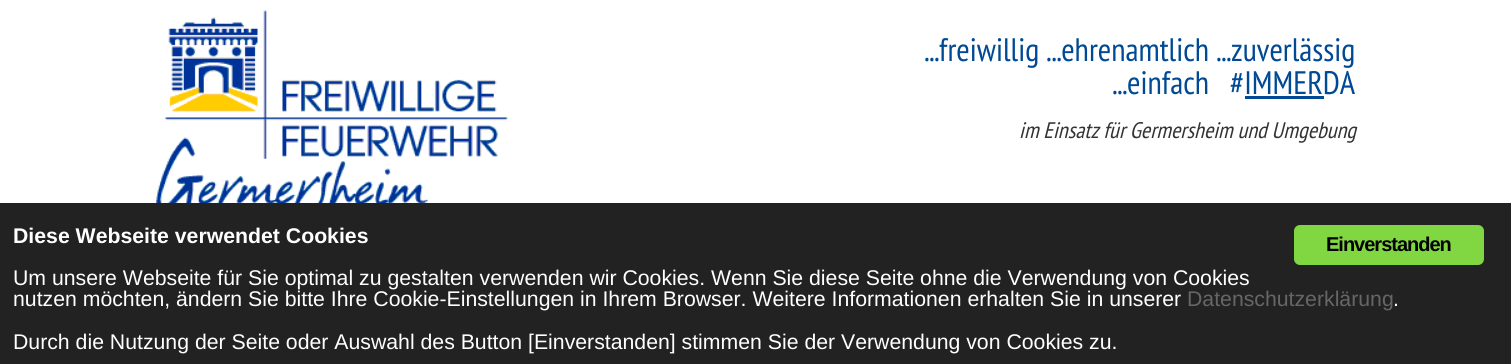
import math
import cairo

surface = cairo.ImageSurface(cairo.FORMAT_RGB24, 1511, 364)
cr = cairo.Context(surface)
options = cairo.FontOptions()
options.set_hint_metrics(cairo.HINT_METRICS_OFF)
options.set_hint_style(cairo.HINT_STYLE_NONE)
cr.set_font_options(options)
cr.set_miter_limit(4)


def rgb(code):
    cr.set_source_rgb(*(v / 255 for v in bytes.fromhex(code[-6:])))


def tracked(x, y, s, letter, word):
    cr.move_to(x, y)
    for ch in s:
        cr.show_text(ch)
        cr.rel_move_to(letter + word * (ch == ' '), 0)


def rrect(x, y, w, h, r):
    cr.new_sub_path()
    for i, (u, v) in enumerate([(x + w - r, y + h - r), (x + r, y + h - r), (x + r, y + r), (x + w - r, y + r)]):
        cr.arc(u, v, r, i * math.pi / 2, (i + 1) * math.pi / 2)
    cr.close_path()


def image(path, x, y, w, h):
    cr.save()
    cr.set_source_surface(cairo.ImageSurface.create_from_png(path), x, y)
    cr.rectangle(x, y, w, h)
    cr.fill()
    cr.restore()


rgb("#ffffff")
cr.paint()
image("img/1.png", 156, 10, 352, 193)
rgb("#004994")
cr.rectangle(1245, 96, 79, 3)
cr.fill()
rgb("#222222")
cr.rectangle(0, 203, 1511, 161)
cr.fill()
rgb("#81d742")
rrect(1294, 225, 190, 40, 6)
cr.fill()
cr.select_font_face("PT Sans Narrow")
cr.set_font_size(32.5)
rgb("#004994")
cr.move_to(924, 61)
cr.show_text("...freiwillig ...ehrenamtlich ...zuverlässig")
cr.move_to(1112, 94)
cr.show_text("...einfach   #IMMERDA")
cr.select_font_face("PT Sans Narrow", cairo.FONT_SLANT_ITALIC)
cr.set_font_size(22.5)
rgb("#333333")
cr.move_to(1019, 138)
cr.show_text("im Einsatz für Germersheim und Umgebung")
cr.select_font_face("Liberation Sans", cairo.FONT_SLANT_NORMAL, cairo.FONT_WEIGHT_BOLD)
cr.set_font_size(21.25)
rgb("#ffffff")
cr.move_to(13, 243)
cr.show_text("Diese Webseite verwendet Cookies")
cr.select_font_face("Liberation Sans")
cr.move_to(13, 285)
cr.show_text("Um unsere Webseite für Sie optimal zu gestalten verwenden wir Cookies. Wenn Sie diese Seite ohne die Verwendung von Cookies")
cr.move_to(13, 306)
cr.show_text("nutzen möchten, ändern Sie bitte Ihre Cookie-Einstellungen in Ihrem Browser. Weitere Informationen erhalten Sie in unserer")
rgb("#666666")
cr.move_to(1187, 306)
cr.show_text("Datenschutzerklärung")
rgb("#ffffff")
cr.move_to(1393, 306)
cr.show_text(".")
cr.move_to(13, 349)
cr.show_text("Durch die Nutzung der Seite oder Auswahl des Button [Einverstanden] stimmen Sie der Verwendung von Cookies zu.")
cr.select_font_face("Liberation Sans", cairo.FONT_SLANT_NORMAL, cairo.FONT_WEIGHT_BOLD)
cr.set_font_size(20)
rgb("#000000")
tracked(1326, 251, "Einverstanden", -1, 0)
surface.write_to_png("page.png")
